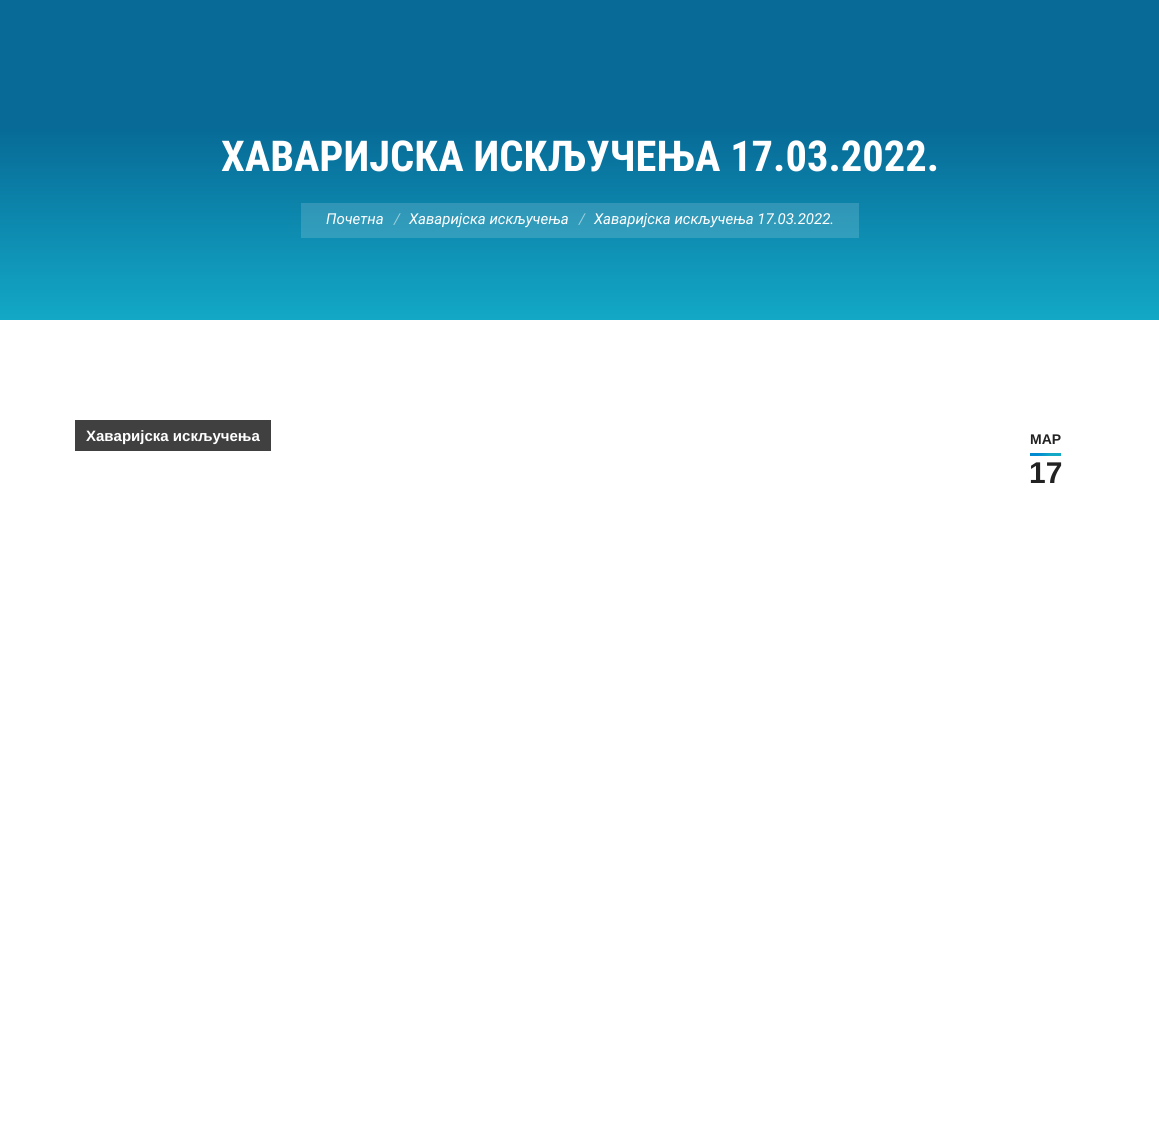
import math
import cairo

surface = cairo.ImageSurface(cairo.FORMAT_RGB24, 1159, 1125)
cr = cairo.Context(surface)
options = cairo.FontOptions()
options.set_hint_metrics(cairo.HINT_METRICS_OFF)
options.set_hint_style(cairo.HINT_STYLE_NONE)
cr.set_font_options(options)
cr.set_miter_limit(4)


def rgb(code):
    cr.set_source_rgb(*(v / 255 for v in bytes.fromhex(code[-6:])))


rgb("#ffffff")
cr.paint()
rgb("#076a97")
cr.rectangle(0, 0, 1159, 45)
cr.fill()
gradient = cairo.LinearGradient(580, 45, 580, 320)
gradient.add_color_stop_rgba(0.3, 0.027, 0.416, 0.592, 1)
gradient.add_color_stop_rgba(1, 0.075, 0.659, 0.776, 1)
cr.set_source(gradient)
cr.rectangle(0, 45, 1159, 275)
cr.fill()
cr.set_source_rgba(1, 1, 1, 0.15)
cr.rectangle(301, 203, 558, 35)
cr.fill()
rgb("#404040")
cr.rectangle(75, 420, 196, 31)
cr.fill()
gradient = cairo.LinearGradient(1037, 445, 1055, 462)
gradient.add_color_stop_rgba(0.3, 0, 0.545, 0.816, 1)
gradient.add_color_stop_rgba(0.67, 0.075, 0.659, 0.776, 1)
cr.set_source(gradient)
cr.rectangle(1030, 453, 31, 3)
cr.fill()
cr.select_font_face("Roboto Condensed", cairo.FONT_SLANT_NORMAL, cairo.FONT_WEIGHT_BOLD)
cr.set_font_size(42.5)
rgb("#ffffff")
cr.move_to(221, 171)
cr.show_text("ХАВАРИЈСКА ИСКЉУЧЕЊА 17.03.2022.")
cr.select_font_face("Roboto", cairo.FONT_SLANT_ITALIC)
cr.set_font_size(15)
cr.move_to(326, 224)
cr.show_text("Почетна")
rgb("#98ccdc")
cr.move_to(394, 224)
cr.show_text("/")
rgb("#ffffff")
cr.move_to(409, 224)
cr.show_text("Хаваријска искључења")
rgb("#98ccdc")
cr.move_to(579, 224)
cr.show_text("/")
rgb("#ffffff")
cr.move_to(594, 224)
cr.show_text("Хаваријска искључења 17.03.2022.")
cr.select_font_face("Liberation Sans", cairo.FONT_SLANT_NORMAL, cairo.FONT_WEIGHT_BOLD)
cr.move_to(86, 441)
cr.show_text("Хаваријска искључења")
cr.set_font_size(14)
rgb("#222222")
cr.move_to(1030, 444)
cr.show_text("МАР")
cr.set_font_size(30)
cr.move_to(1029, 483)
cr.show_text("17")
surface.write_to_png("page.png")
